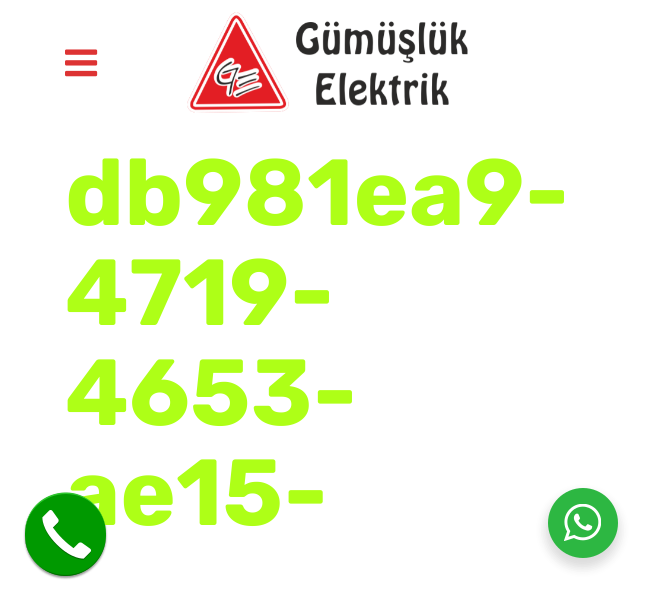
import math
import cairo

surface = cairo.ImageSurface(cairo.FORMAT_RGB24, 655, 595)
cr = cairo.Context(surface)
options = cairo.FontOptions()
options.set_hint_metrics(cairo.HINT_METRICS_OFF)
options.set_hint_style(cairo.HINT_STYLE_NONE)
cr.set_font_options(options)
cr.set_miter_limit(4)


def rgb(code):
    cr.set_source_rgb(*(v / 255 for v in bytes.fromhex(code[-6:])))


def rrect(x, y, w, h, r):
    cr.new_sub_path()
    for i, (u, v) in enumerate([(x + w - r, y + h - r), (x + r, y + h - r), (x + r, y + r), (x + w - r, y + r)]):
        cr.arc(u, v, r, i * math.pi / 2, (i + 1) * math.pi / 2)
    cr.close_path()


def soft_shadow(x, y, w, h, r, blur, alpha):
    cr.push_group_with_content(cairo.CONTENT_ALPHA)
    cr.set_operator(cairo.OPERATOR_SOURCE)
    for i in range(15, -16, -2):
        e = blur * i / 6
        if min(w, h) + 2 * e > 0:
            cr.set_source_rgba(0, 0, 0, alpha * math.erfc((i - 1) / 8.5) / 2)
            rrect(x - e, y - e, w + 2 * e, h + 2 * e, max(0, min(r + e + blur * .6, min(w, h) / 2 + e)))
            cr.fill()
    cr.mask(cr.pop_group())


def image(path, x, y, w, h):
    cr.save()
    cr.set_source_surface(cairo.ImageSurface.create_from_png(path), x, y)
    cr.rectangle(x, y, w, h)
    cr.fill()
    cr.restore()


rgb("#ffffff")
cr.paint()
rgb("#000000")
soft_shadow(25, 494, 81, 84, 40.5, 1, 0.4)
image("img/2.png", 65, 49, 33, 28)
image("img/3.png", 187, 12, 281, 101)
soft_shadow(545, 493, 75, 75, 37.5, 5, 0.14)
rgb("#2db742")
cr.arc(583, 523, 35, 0, 2 * math.pi)
cr.fill()
image("img/4.png", 564, 504, 37, 37)
cr.select_font_face("Rubik", cairo.FONT_SLANT_NORMAL, cairo.FONT_WEIGHT_BOLD)
cr.set_font_size(93.75)
rgb("#aeff17")
for x, y, s in [
    (65, 225, "db981ea9-"),
    (65, 325, "4719-"),
    (65, 425, "4653-"),
    (65, 525, "ae15-"),
]:
    cr.move_to(x, y)
    cr.show_text(s)
rgb("#009900")
rrect(25, 493, 81, 83, 40.5)
cr.fill()
image("img/1.png", 42, 510, 49, 50)
rgb("#006700")
cr.new_path()
cr.move_to(25, 535)
cr.curve_to(25, 544, 27, 551, 32, 558)
cr.curve_to(57, 592, 106, 574, 106, 534)
cr.curve_to(106, 547, 100, 559, 90, 567)
cr.curve_to(87, 569, 84, 571, 81, 572)
cr.curve_to(64, 579, 42, 573, 32, 558)
cr.curve_to(28, 552, 25, 543, 25, 535)
cr.close_path()
cr.fill()
rgb("#2dc62d")
cr.new_path()
cr.move_to(66, 494)
cr.curve_to(89, 494, 106, 512, 106, 534)
cr.curve_to(106, 504, 77, 484, 49, 496)
cr.curve_to(42, 499, 36, 504, 32, 510)
cr.curve_to(28, 516, 25, 524, 25, 532)
cr.curve_to(26, 510, 45, 494, 66, 494)
cr.close_path()
cr.fill()
surface.write_to_png("page.png")
